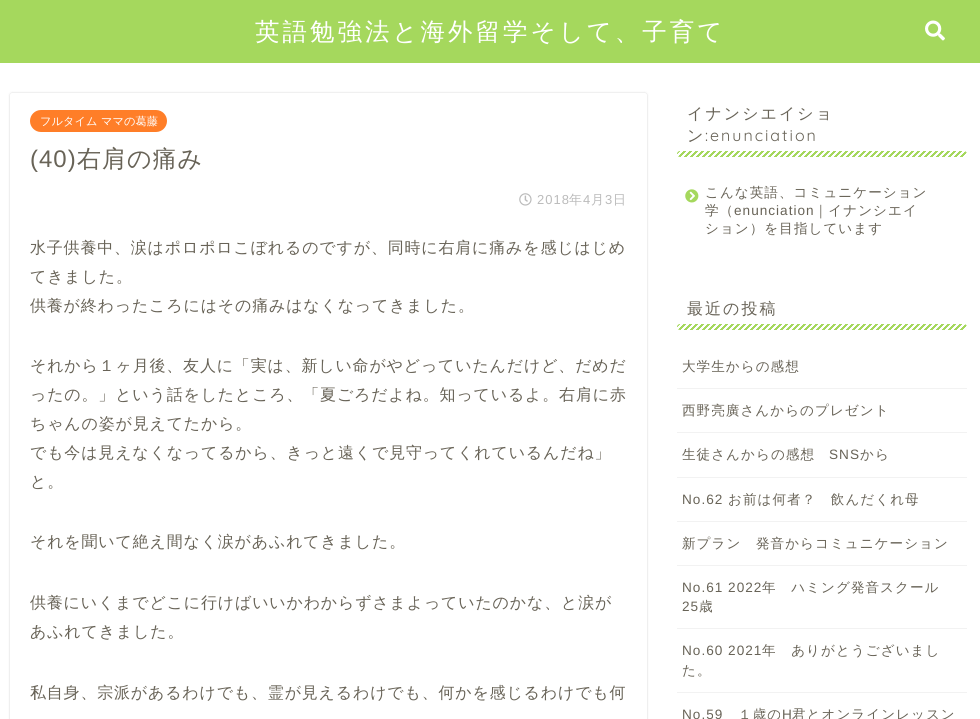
import math
import cairo

surface = cairo.ImageSurface(cairo.FORMAT_RGB24, 980, 719)
cr = cairo.Context(surface)
options = cairo.FontOptions()
options.set_hint_metrics(cairo.HINT_METRICS_OFF)
options.set_hint_style(cairo.HINT_STYLE_NONE)
cr.set_font_options(options)
cr.set_miter_limit(4)


def rgb(code):
    cr.set_source_rgb(*(v / 255 for v in bytes.fromhex(code[-6:])))


def tracked(x, y, s, letter, word):
    cr.move_to(x, y)
    for ch in s:
        cr.show_text(ch)
        cr.rel_move_to(letter + word * (ch == ' '), 0)


def rrect(x, y, w, h, r):
    cr.new_sub_path()
    for i, (u, v) in enumerate([(x + w - r, y + h - r), (x + r, y + h - r), (x + r, y + r), (x + w - r, y + r)]):
        cr.arc(u, v, r, i * math.pi / 2, (i + 1) * math.pi / 2)
    cr.close_path()


def soft_shadow(x, y, w, h, r, blur, alpha):
    cr.push_group_with_content(cairo.CONTENT_ALPHA)
    cr.set_operator(cairo.OPERATOR_SOURCE)
    for i in range(15, -16, -2):
        e = blur * i / 6
        if min(w, h) + 2 * e > 0:
            cr.set_source_rgba(0, 0, 0, alpha * math.erfc((i - 1) / 8.5) / 2)
            rrect(x - e, y - e, w + 2 * e, h + 2 * e, max(0, min(r + e + blur * .6, min(w, h) / 2 + e)))
            cr.fill()
    cr.mask(cr.pop_group())


def image(path, x, y, w, h):
    cr.save()
    cr.set_source_surface(cairo.ImageSurface.create_from_png(path), x, y)
    cr.rectangle(x, y, w, h)
    cr.fill()
    cr.restore()


rgb("#ffffff")
cr.paint()
rgb("#a5d85d")
cr.rectangle(0, 0, 980, 63)
cr.fill()
image("img/1.png", 925, 20, 20, 21)
rgb("#000000")
soft_shadow(10, 93, 637, 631, 2, 1, 0.18)
rgb("#ffffff")
rrect(10, 93, 637, 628, 2)
cr.fill()
rgb("#ff7e28")
rrect(30, 110, 137, 22, 11)
cr.fill()
image("img/2.png", 519, 193, 13, 13)
image("img/3.png", 677, 151, 290, 6)
image("img/4.png", 685, 189, 14, 14)
image("img/3.png", 677, 324, 290, 6)
for x, y, w, h, color in [
    (677, 388, 290, 1, "#f2f2f2"),
    (677, 432, 290, 1, "#f2f2f2"),
    (677, 477, 290, 1, "#f2f2f2"),
    (677, 521, 290, 1, "#f2f2f2"),
    (677, 565, 290, 1, "#f2f2f2"),
    (677, 628, 290, 1, "#f2f2f2"),
    (677, 692, 290, 1, "#f2f2f2"),
]:
    rgb(color)
    cr.rectangle(x, y, w, h)
    cr.fill()
cr.select_font_face("WenQuanYi Zen Hei Medium")
cr.set_font_size(24.5)
rgb("#ffffff")
tracked(255, 40, "英語勉強法と海外留学そして、子育て", 3, 0)
cr.set_font_size(11.25)
cr.move_to(40, 125)
cr.show_text("フルタイム ママの葛藤")
cr.select_font_face("Liberation Sans")
cr.set_font_size(24)
rgb("#686357")
tracked(30, 167, "(40)", 1, 0)
cr.select_font_face("WenQuanYi Zen Hei Medium")
tracked(77, 167, "右肩の痛み", 1, 0)
cr.select_font_face("Liberation Sans")
cr.set_font_size(13)
rgb("#bbbbbb")
tracked(537, 204, "2018", 1, 0)
cr.select_font_face("WenQuanYi Zen Hei Medium")
tracked(569, 204, "年", 1, 0)
cr.select_font_face("Liberation Sans")
tracked(583, 204, "4", 1, 0)
cr.select_font_face("WenQuanYi Zen Hei Medium")
tracked(591, 204, "月", 1, 0)
cr.select_font_face("Liberation Sans")
tracked(605, 204, "3", 1, 0)
cr.select_font_face("WenQuanYi Zen Hei Medium")
tracked(613, 204, "日", 1, 0)
cr.set_font_size(16)
rgb("#686357")
for x, y, s in [
    (30, 253, "水子供養中、涙はポロポロこぼれるのですが、同時に右肩に痛みを感じはじめ"),
    (30, 282, "てきました。"),
    (30, 311, "供養が終わったころにはその痛みはなくなってきました。"),
    (30, 371, "それから１ヶ月後、友人に「実は、新しい命がやどっていたんだけど、だめだ"),
    (30, 400, "ったの。」という話をしたところ、「夏ごろだよね。知っているよ。右肩に赤"),
    (30, 429, "ちゃんの姿が見えてたから。"),
    (30, 458, "でも今は見えなくなってるから、きっと遠くで見守ってくれているんだね」"),
    (30, 487, "と。"),
    (30, 547, "それを聞いて絶え間なく涙があふれてきました。"),
    (30, 608, "供養にいくまでどこに行けばいいかわからずさまよっていたのかな、と涙が"),
    (30, 637, "あふれてきました。"),
    (30, 698, "私自身、宗派があるわけでも、霊が見えるわけでも、何かを感じるわけでも何"),
]:
    tracked(x, y, s, 0.8, 0)
tracked(687, 119, "イナンシエイショ", 2, 0)
tracked(687, 141, "ン", 2, 0)
cr.select_font_face("Quicksand Light")
tracked(705, 141, ":enunciation", 2, 0)
cr.select_font_face("WenQuanYi Zen Hei Medium")
cr.set_font_size(13.6)
tracked(705, 197, "こんな英語、コミュニケーション", 1, 0)
tracked(705, 215, "学（", 1, 0)
cr.select_font_face("Liberation Sans")
tracked(734, 215, "enunciation", 1, 0)
cr.select_font_face("WenQuanYi Zen Hei Medium")
tracked(814, 215, "｜イナンシエイ", 1, 0)
tracked(705, 233, "ション）を目指しています", 1, 0)
cr.set_font_size(16)
tracked(687, 314, "最近の投稿", 2, 0)
cr.set_font_size(13.6)
for x, y, s in [
    (682, 371, "大学生からの感想"),
    (682, 415, "西野亮廣さんからのプレゼント"),
    (682, 459, "生徒さんからの感想"),
]:
    tracked(x, y, s, 1, 0)
cr.select_font_face("Liberation Sans")
tracked(829, 459, "SNS", 1, 0)
cr.select_font_face("WenQuanYi Zen Hei Medium")
tracked(860, 459, "から", 1, 0)
cr.select_font_face("Liberation Sans")
tracked(682, 504, "No.62", 1, 0)
cr.select_font_face("WenQuanYi Zen Hei Medium")
tracked(728, 504, "お前は何者？　飲んだくれ母", 1, 0)
tracked(682, 548, "新プラン　発音からコミュニケーション", 1, 0)
cr.select_font_face("Liberation Sans")
tracked(682, 592, "No.61 2022", 1, 0)
cr.select_font_face("WenQuanYi Zen Hei Medium")
tracked(762, 592, "年　ハミング発音スクール", 1, 0)
cr.select_font_face("Liberation Sans")
tracked(682, 611, "25", 1, 0)
cr.select_font_face("WenQuanYi Zen Hei Medium")
tracked(699, 611, "歳", 1, 0)
cr.select_font_face("Liberation Sans")
tracked(682, 655, "No.60 2021", 1, 0)
cr.select_font_face("WenQuanYi Zen Hei Medium")
tracked(762, 655, "年　ありがとうございまし", 1, 0)
tracked(682, 675, "た。", 1, 0)
cr.select_font_face("Liberation Sans")
tracked(682, 719, "No.59", 1, 0)
cr.select_font_face("WenQuanYi Zen Hei Medium")
tracked(738, 719, "１歳の", 1, 0)
cr.select_font_face("Liberation Sans")
tracked(782, 719, "H", 1, 0)
cr.select_font_face("WenQuanYi Zen Hei Medium")
tracked(792, 719, "君とオンラインレッスン", 1, 0)
surface.write_to_png("page.png")
